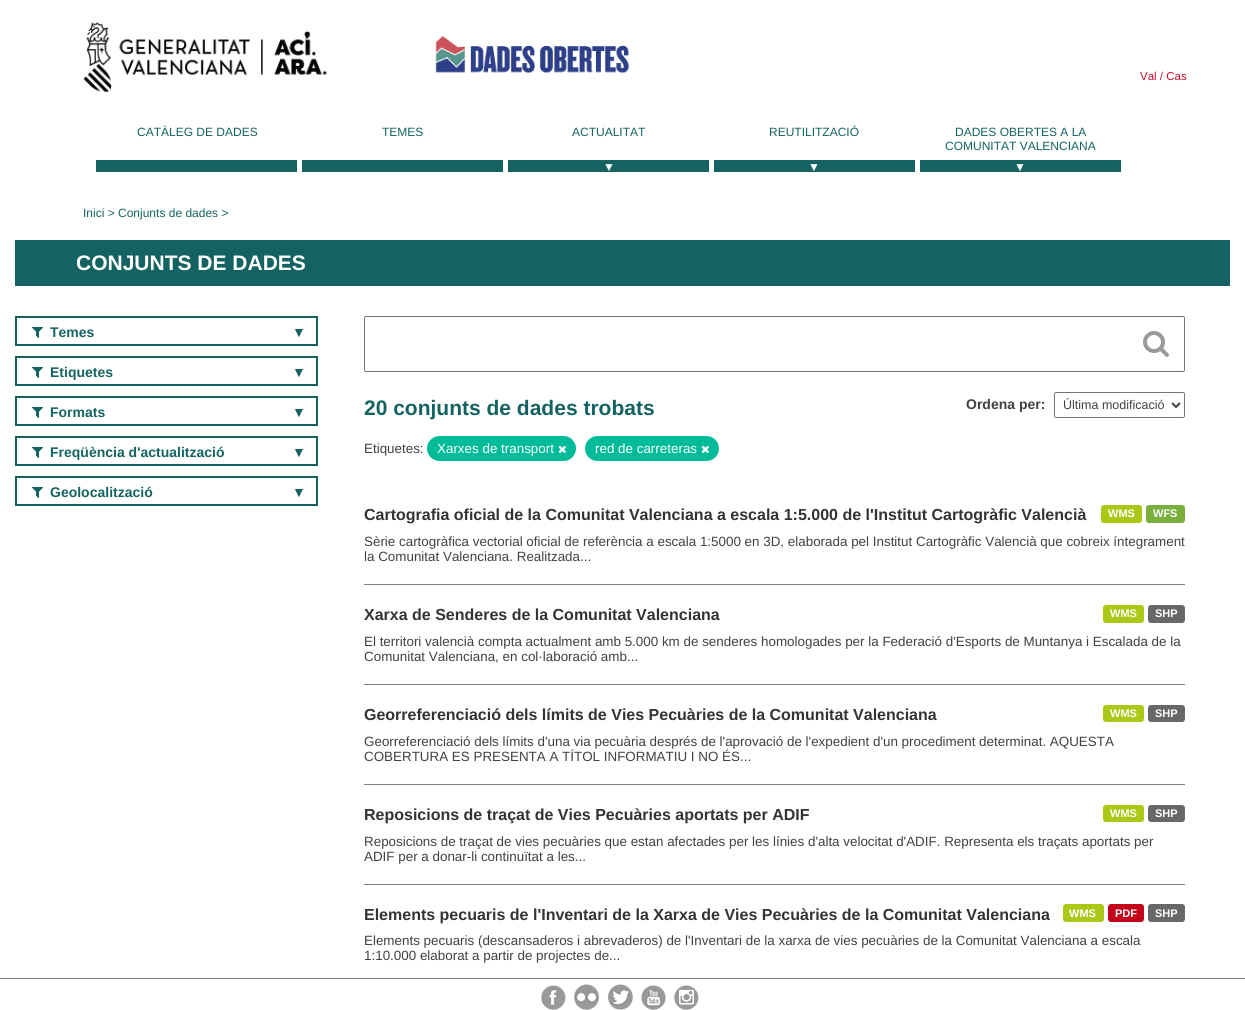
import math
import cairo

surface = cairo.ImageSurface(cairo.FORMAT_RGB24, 1245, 1010)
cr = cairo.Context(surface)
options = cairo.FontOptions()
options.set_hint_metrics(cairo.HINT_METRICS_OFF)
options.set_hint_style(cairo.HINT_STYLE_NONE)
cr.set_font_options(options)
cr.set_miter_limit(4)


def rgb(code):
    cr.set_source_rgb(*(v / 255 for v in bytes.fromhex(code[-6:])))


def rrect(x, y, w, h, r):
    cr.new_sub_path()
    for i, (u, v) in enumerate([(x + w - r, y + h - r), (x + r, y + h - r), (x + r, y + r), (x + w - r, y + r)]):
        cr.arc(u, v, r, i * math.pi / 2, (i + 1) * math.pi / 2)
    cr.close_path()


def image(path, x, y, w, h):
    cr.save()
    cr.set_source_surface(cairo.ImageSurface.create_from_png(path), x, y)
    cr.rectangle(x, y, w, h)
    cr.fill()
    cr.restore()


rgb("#ffffff")
cr.paint()
image("img/1.png", 83, 22, 244, 71)
image("img/2.png", 435, 36, 195, 38)
for x, y, w, h, color in [
    (96, 160, 201, 12, "#146362"),
    (302, 160, 201, 12, "#146362"),
    (508, 160, 201, 12, "#146362"),
    (714, 160, 201, 12, "#146362"),
    (920, 160, 201, 12, "#146362"),
    (15, 240, 1215, 46, "#146362"),
]:
    rgb(color)
    cr.rectangle(x, y, w, h)
    cr.fill()
cr.rectangle(16, 317, 301, 28)
cr.stroke()
image("img/3.png", 32, 327, 11, 11)
cr.rectangle(16, 357, 301, 28)
cr.stroke()
image("img/3.png", 32, 367, 11, 11)
cr.rectangle(16, 397, 301, 28)
cr.stroke()
image("img/3.png", 32, 407, 11, 11)
cr.rectangle(16, 437, 301, 28)
cr.stroke()
image("img/3.png", 32, 447, 11, 11)
cr.rectangle(16, 477, 301, 28)
cr.stroke()
image("img/3.png", 32, 487, 11, 11)
rrect(364.5, 316.5, 820, 55, 1.5)
rgb("#767676")
cr.set_line_width(1)
cr.stroke()
image("img/4.png", 1143, 331, 26, 26)
rrect(1054.5, 392.5, 130, 25, 1.5)
cr.stroke()
cr.new_path()
cr.move_to(1172, 403)
cr.line_to(1176, 407)
cr.line_to(1180, 403)
rgb("#414042")
cr.set_line_width(2)
cr.stroke()
rgb("#00bb99")
rrect(427, 436, 149, 25, 12.5)
cr.fill()
image("img/5.png", 558, 445, 8, 9)
rrect(585, 436, 134, 25, 12.5)
cr.fill()
image("img/5.png", 701, 445, 8, 9)
rgb("#808080")
cr.rectangle(364, 584, 821, 1)
cr.fill()
rgb("#adc717")
rrect(1101, 505, 41, 18, 3)
cr.fill()
rgb("#7aae3d")
rrect(1146, 505, 39, 18, 3)
cr.fill()
rgb("#808080")
cr.rectangle(364, 684, 821, 1)
cr.fill()
rgb("#adc717")
rrect(1103, 605, 41, 18, 3)
cr.fill()
rgb("#686868")
rrect(1148, 605, 37, 18, 3)
cr.fill()
rgb("#808080")
cr.rectangle(364, 784, 821, 1)
cr.fill()
rgb("#adc717")
rrect(1103, 705, 41, 17, 3)
cr.fill()
rgb("#686868")
rrect(1148, 705, 37, 17, 3)
cr.fill()
rgb("#808080")
cr.rectangle(364, 884, 821, 1)
cr.fill()
rgb("#adc717")
rrect(1103, 805, 41, 17, 3)
cr.fill()
rgb("#686868")
rrect(1148, 805, 37, 17, 3)
cr.fill()
rgb("#adc717")
rrect(1063, 904, 41, 18, 3)
cr.fill()
rgb("#c4041a")
rrect(1108, 904, 36, 18, 3)
cr.fill()
rgb("#686868")
rrect(1148, 904, 37, 18, 3)
cr.fill()
rgb("#808080")
cr.rectangle(0, 978, 1245, 1)
cr.fill()
image("img/6.png", 541, 985, 25, 25)
image("img/7.png", 574, 984, 25, 26)
image("img/8.png", 608, 984, 25, 26)
image("img/9.png", 641, 985, 25, 25)
image("img/10.png", 674, 985, 25, 25)
cr.select_font_face("Liberation Sans")
cr.set_font_size(11.5)
rgb("#c70f2d")
cr.move_to(1140, 80)
cr.show_text("Val / Cas")
cr.set_font_size(12)
rgb("#146362")
for x, y, s in [
    (137, 136, "CATÀLEG DE DADES"),
    (382, 136, "TEMES"),
    (572, 136, "ACTUALITAT"),
]:
    cr.move_to(x, y)
    cr.show_text(s)
rgb("#ffffff")
cr.move_to(603, 171)
cr.show_text("▼")
rgb("#146362")
cr.move_to(769, 136)
cr.show_text("REUTILITZACIÓ")
rgb("#ffffff")
cr.move_to(808, 171)
cr.show_text("▼")
rgb("#146362")
cr.move_to(955, 136)
cr.show_text("DADES OBERTES A LA")
cr.move_to(945, 150)
cr.show_text("COMUNITAT VALENCIANA")
rgb("#ffffff")
cr.move_to(1014, 171)
cr.show_text("▼")
rgb("#146362")
cr.move_to(83, 217)
cr.show_text("Inici > Conjunts de dades >")
cr.select_font_face("Liberation Sans", cairo.FONT_SLANT_NORMAL, cairo.FONT_WEIGHT_BOLD)
cr.set_font_size(21)
rgb("#ffffff")
cr.move_to(76, 270)
cr.show_text("CONJUNTS DE DADES")
cr.set_font_size(14)
rgb("#146362")
cr.move_to(50, 337)
cr.show_text("Temes")
cr.select_font_face("Liberation Serif")
cr.move_to(292, 337)
cr.show_text("▼")
cr.select_font_face("Liberation Sans", cairo.FONT_SLANT_NORMAL, cairo.FONT_WEIGHT_BOLD)
cr.move_to(50, 377)
cr.show_text("Etiquetes")
cr.select_font_face("Liberation Serif")
cr.move_to(292, 377)
cr.show_text("▼")
cr.select_font_face("Liberation Sans", cairo.FONT_SLANT_NORMAL, cairo.FONT_WEIGHT_BOLD)
cr.move_to(50, 417)
cr.show_text("Formats")
cr.select_font_face("Liberation Serif")
cr.move_to(292, 417)
cr.show_text("▼")
cr.select_font_face("Liberation Sans", cairo.FONT_SLANT_NORMAL, cairo.FONT_WEIGHT_BOLD)
cr.move_to(50, 457)
cr.show_text("Freqüència d'actualització")
cr.select_font_face("Liberation Serif")
cr.move_to(292, 457)
cr.show_text("▼")
cr.select_font_face("Liberation Sans", cairo.FONT_SLANT_NORMAL, cairo.FONT_WEIGHT_BOLD)
cr.move_to(50, 497)
cr.show_text("Geolocalització")
cr.select_font_face("Liberation Serif")
cr.move_to(292, 497)
cr.show_text("▼")
cr.select_font_face("Liberation Sans", cairo.FONT_SLANT_NORMAL, cairo.FONT_WEIGHT_BOLD)
cr.set_font_size(21)
cr.move_to(364, 415)
cr.show_text("20 conjunts de dades trobats")
cr.set_font_size(14)
rgb("#414042")
cr.move_to(966, 409)
cr.show_text("Ordena per:")
cr.select_font_face("Liberation Sans")
cr.set_font_size(12.5)
cr.move_to(1063, 409)
cr.show_text("Última modificació")
cr.set_font_size(13.4)
cr.move_to(364, 453)
cr.show_text("Etiquetes:")
rgb("#ffffff")
cr.move_to(437, 453)
cr.show_text("Xarxes de transport")
cr.move_to(595, 453)
cr.show_text("red de carreteras")
cr.select_font_face("Liberation Sans", cairo.FONT_SLANT_NORMAL, cairo.FONT_WEIGHT_BOLD)
cr.set_font_size(16)
rgb("#333333")
cr.move_to(364, 520)
cr.show_text("Cartografia oficial de la Comunitat Valenciana a escala 1:5.000 de l'Institut Cartogràfic Valencià")
cr.set_font_size(11)
rgb("#ffffff")
cr.move_to(1108, 517)
cr.show_text("WMS")
cr.move_to(1153, 517)
cr.show_text("WFS")
cr.select_font_face("Liberation Sans")
cr.set_font_size(13.4)
rgb("#414042")
cr.move_to(364, 546)
cr.show_text("Sèrie cartogràfica vectorial oficial de referència a escala 1:5000 en 3D, elaborada pel Institut Cartogràfic Valencià que cobreix íntegrament")
cr.move_to(364, 561)
cr.show_text("la Comunitat Valenciana. Realitzada...")
cr.select_font_face("Liberation Sans", cairo.FONT_SLANT_NORMAL, cairo.FONT_WEIGHT_BOLD)
cr.set_font_size(16)
rgb("#333333")
cr.move_to(364, 620)
cr.show_text("Xarxa de Senderes de la Comunitat Valenciana")
cr.set_font_size(11)
rgb("#ffffff")
cr.move_to(1110, 617)
cr.show_text("WMS")
cr.move_to(1155, 617)
cr.show_text("SHP")
cr.select_font_face("Liberation Sans")
cr.set_font_size(13.4)
rgb("#414042")
cr.move_to(364, 646)
cr.show_text("El territori valencià compta actualment amb 5.000 km de senderes homologades per la Federació d'Esports de Muntanya i Escalada de la")
cr.move_to(364, 661)
cr.show_text("Comunitat Valenciana, en col·laboració amb...")
cr.select_font_face("Liberation Sans", cairo.FONT_SLANT_NORMAL, cairo.FONT_WEIGHT_BOLD)
cr.set_font_size(16)
rgb("#333333")
cr.move_to(364, 720)
cr.show_text("Georreferenciació dels límits de Vies Pecuàries de la Comunitat Valenciana")
cr.set_font_size(11)
rgb("#ffffff")
cr.move_to(1110, 717)
cr.show_text("WMS")
cr.move_to(1155, 717)
cr.show_text("SHP")
cr.select_font_face("Liberation Sans")
cr.set_font_size(13.4)
rgb("#414042")
cr.move_to(364, 746)
cr.show_text("Georreferenciació dels límits d'una via pecuària després de l'aprovació de l'expedient d'un procediment determinat. AQUESTA")
cr.move_to(364, 761)
cr.show_text("COBERTURA ES PRESENTA A TÍTOL INFORMATIU I NO ÉS...")
cr.select_font_face("Liberation Sans", cairo.FONT_SLANT_NORMAL, cairo.FONT_WEIGHT_BOLD)
cr.set_font_size(16)
rgb("#333333")
cr.move_to(364, 820)
cr.show_text("Reposicions de traçat de Vies Pecuàries aportats per ADIF")
cr.set_font_size(11)
rgb("#ffffff")
cr.move_to(1110, 817)
cr.show_text("WMS")
cr.move_to(1155, 817)
cr.show_text("SHP")
cr.select_font_face("Liberation Sans")
cr.set_font_size(13.4)
rgb("#414042")
cr.move_to(364, 846)
cr.show_text("Reposicions de traçat de vies pecuàries que estan afectades per les línies d'alta velocitat d'ADIF. Representa els traçats aportats per")
cr.move_to(364, 861)
cr.show_text("ADIF per a donar-li continuïtat a les...")
cr.select_font_face("Liberation Sans", cairo.FONT_SLANT_NORMAL, cairo.FONT_WEIGHT_BOLD)
cr.set_font_size(16)
rgb("#333333")
cr.move_to(364, 920)
cr.show_text("Elements pecuaris de l'Inventari de la Xarxa de Vies Pecuàries de la Comunitat Valenciana")
cr.set_font_size(11)
rgb("#ffffff")
for x, y, s in [
    (1069, 917, "WMS"),
    (1115, 917, "PDF"),
    (1155, 917, "SHP"),
]:
    cr.move_to(x, y)
    cr.show_text(s)
cr.select_font_face("Liberation Sans")
cr.set_font_size(13.4)
rgb("#414042")
cr.move_to(364, 945)
cr.show_text("Elements pecuaris (descansaderos i abrevaderos) de l'Inventari de la xarxa de vies pecuàries de la Comunitat Valenciana a escala")
cr.move_to(364, 960)
cr.show_text("1:10.000 elaborat a partir de projectes de...")
surface.write_to_png("page.png")
